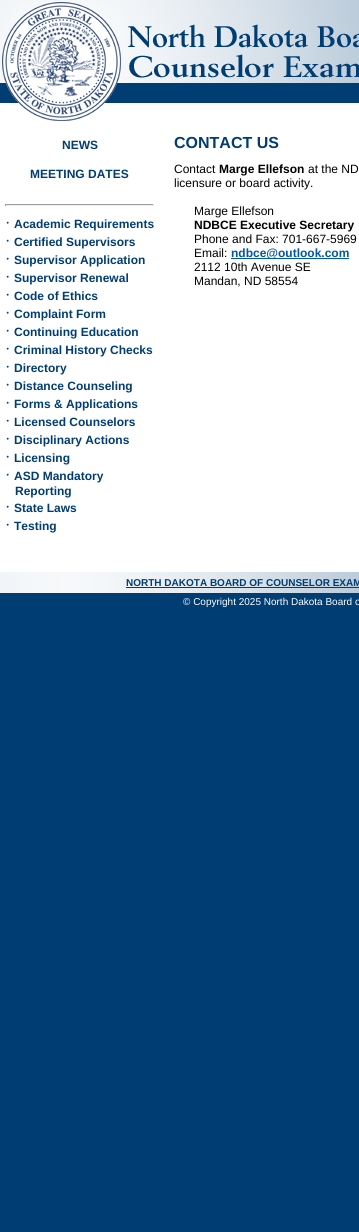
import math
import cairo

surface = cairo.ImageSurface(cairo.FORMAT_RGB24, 359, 1232)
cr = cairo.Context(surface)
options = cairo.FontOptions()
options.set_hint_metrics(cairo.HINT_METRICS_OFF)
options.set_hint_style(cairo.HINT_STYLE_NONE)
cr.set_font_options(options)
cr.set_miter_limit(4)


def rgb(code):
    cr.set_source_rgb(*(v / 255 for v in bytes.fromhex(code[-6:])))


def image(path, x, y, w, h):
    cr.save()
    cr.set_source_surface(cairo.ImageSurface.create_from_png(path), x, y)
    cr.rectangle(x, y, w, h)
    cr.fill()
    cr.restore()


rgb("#003d73")
cr.paint()
image("img/1.png", 0, 0, 123, 123)
image("img/2.png", 123, 0, 236, 123)
for x, y, w, h, color in [
    (0, 123, 359, 449, "#ffffff"),
    (5, 204, 149, 1, "#9f9f9f"),
    (153, 204, 1, 2, "#eeeeee"),
    (5, 205, 149, 1, "#eeeeee"),
    (5, 204, 1, 2, "#9f9f9f"),
    (231, 258, 118, 1, "#00599d"),
]:
    rgb(color)
    cr.rectangle(x, y, w, h)
    cr.fill()
image("img/3.png", 0, 572, 359, 21)
rgb("#003d73")
cr.rectangle(126, 587, 233, 1)
cr.fill()
cr.select_font_face("Liberation Sans", cairo.FONT_SLANT_NORMAL, cairo.FONT_WEIGHT_BOLD)
cr.set_font_size(12)
cr.move_to(62, 149)
cr.show_text("NEWS")
cr.move_to(30, 178)
cr.show_text("MEETING DATES")
cr.select_font_face("Liberation Serif")
cr.set_font_size(16)
cr.move_to(5, 228)
cr.show_text("·")
cr.select_font_face("Liberation Sans", cairo.FONT_SLANT_NORMAL, cairo.FONT_WEIGHT_BOLD)
cr.set_font_size(12)
cr.move_to(14, 228)
cr.show_text("Academic Requirements")
cr.select_font_face("Liberation Serif")
cr.set_font_size(16)
cr.move_to(5, 246)
cr.show_text("·")
cr.select_font_face("Liberation Sans", cairo.FONT_SLANT_NORMAL, cairo.FONT_WEIGHT_BOLD)
cr.set_font_size(12)
cr.move_to(14, 246)
cr.show_text("Certified Supervisors")
cr.select_font_face("Liberation Serif")
cr.set_font_size(16)
cr.move_to(5, 264)
cr.show_text("·")
cr.select_font_face("Liberation Sans", cairo.FONT_SLANT_NORMAL, cairo.FONT_WEIGHT_BOLD)
cr.set_font_size(12)
cr.move_to(14, 264)
cr.show_text("Supervisor Application")
cr.select_font_face("Liberation Serif")
cr.set_font_size(16)
cr.move_to(5, 282)
cr.show_text("·")
cr.select_font_face("Liberation Sans", cairo.FONT_SLANT_NORMAL, cairo.FONT_WEIGHT_BOLD)
cr.set_font_size(12)
cr.move_to(14, 282)
cr.show_text("Supervisor Renewal")
cr.select_font_face("Liberation Serif")
cr.set_font_size(16)
cr.move_to(5, 300)
cr.show_text("·")
cr.select_font_face("Liberation Sans", cairo.FONT_SLANT_NORMAL, cairo.FONT_WEIGHT_BOLD)
cr.set_font_size(12)
cr.move_to(14, 300)
cr.show_text("Code of Ethics")
cr.select_font_face("Liberation Serif")
cr.set_font_size(16)
cr.move_to(5, 318)
cr.show_text("·")
cr.select_font_face("Liberation Sans", cairo.FONT_SLANT_NORMAL, cairo.FONT_WEIGHT_BOLD)
cr.set_font_size(12)
cr.move_to(14, 318)
cr.show_text("Complaint Form")
cr.select_font_face("Liberation Serif")
cr.set_font_size(16)
cr.move_to(5, 336)
cr.show_text("·")
cr.select_font_face("Liberation Sans", cairo.FONT_SLANT_NORMAL, cairo.FONT_WEIGHT_BOLD)
cr.set_font_size(12)
cr.move_to(14, 336)
cr.show_text("Continuing Education")
cr.select_font_face("Liberation Serif")
cr.set_font_size(16)
cr.move_to(5, 354)
cr.show_text("·")
cr.select_font_face("Liberation Sans", cairo.FONT_SLANT_NORMAL, cairo.FONT_WEIGHT_BOLD)
cr.set_font_size(12)
cr.move_to(14, 354)
cr.show_text("Criminal History Checks")
cr.select_font_face("Liberation Serif")
cr.set_font_size(16)
cr.move_to(5, 372)
cr.show_text("·")
cr.select_font_face("Liberation Sans", cairo.FONT_SLANT_NORMAL, cairo.FONT_WEIGHT_BOLD)
cr.set_font_size(12)
cr.move_to(14, 372)
cr.show_text("Directory")
cr.select_font_face("Liberation Serif")
cr.set_font_size(16)
cr.move_to(5, 390)
cr.show_text("·")
cr.select_font_face("Liberation Sans", cairo.FONT_SLANT_NORMAL, cairo.FONT_WEIGHT_BOLD)
cr.set_font_size(12)
cr.move_to(14, 390)
cr.show_text("Distance Counseling")
cr.select_font_face("Liberation Serif")
cr.set_font_size(16)
cr.move_to(5, 408)
cr.show_text("·")
cr.select_font_face("Liberation Sans", cairo.FONT_SLANT_NORMAL, cairo.FONT_WEIGHT_BOLD)
cr.set_font_size(12)
cr.move_to(14, 408)
cr.show_text("Forms & Applications")
cr.select_font_face("Liberation Serif")
cr.set_font_size(16)
cr.move_to(5, 426)
cr.show_text("·")
cr.select_font_face("Liberation Sans", cairo.FONT_SLANT_NORMAL, cairo.FONT_WEIGHT_BOLD)
cr.set_font_size(12)
cr.move_to(14, 426)
cr.show_text("Licensed Counselors")
cr.select_font_face("Liberation Serif")
cr.set_font_size(16)
cr.move_to(5, 444)
cr.show_text("·")
cr.select_font_face("Liberation Sans", cairo.FONT_SLANT_NORMAL, cairo.FONT_WEIGHT_BOLD)
cr.set_font_size(12)
cr.move_to(14, 444)
cr.show_text("Disciplinary Actions")
cr.select_font_face("Liberation Serif")
cr.set_font_size(16)
cr.move_to(5, 462)
cr.show_text("·")
cr.select_font_face("Liberation Sans", cairo.FONT_SLANT_NORMAL, cairo.FONT_WEIGHT_BOLD)
cr.set_font_size(12)
cr.move_to(14, 462)
cr.show_text("Licensing")
cr.select_font_face("Liberation Serif")
cr.set_font_size(16)
cr.move_to(5, 480)
cr.show_text("·")
cr.select_font_face("Liberation Sans", cairo.FONT_SLANT_NORMAL, cairo.FONT_WEIGHT_BOLD)
cr.set_font_size(12)
cr.move_to(14, 480)
cr.show_text("ASD Mandatory")
cr.move_to(15, 495)
cr.show_text("Reporting")
cr.select_font_face("Liberation Serif")
cr.set_font_size(16)
cr.move_to(5, 512)
cr.show_text("·")
cr.select_font_face("Liberation Sans", cairo.FONT_SLANT_NORMAL, cairo.FONT_WEIGHT_BOLD)
cr.set_font_size(12)
cr.move_to(14, 512)
cr.show_text("State Laws")
cr.select_font_face("Liberation Serif")
cr.set_font_size(16)
cr.move_to(5, 530)
cr.show_text("·")
cr.select_font_face("Liberation Sans", cairo.FONT_SLANT_NORMAL, cairo.FONT_WEIGHT_BOLD)
cr.set_font_size(12)
cr.move_to(14, 530)
cr.show_text("Testing")
cr.set_font_size(16)
cr.move_to(174, 148)
cr.show_text("CONTACT US")
cr.select_font_face("Liberation Sans")
cr.set_font_size(12)
rgb("#000000")
cr.move_to(174, 173)
cr.show_text("Contact")
cr.select_font_face("Liberation Sans", cairo.FONT_SLANT_NORMAL, cairo.FONT_WEIGHT_BOLD)
cr.move_to(219, 173)
cr.show_text("Marge Ellefson")
cr.select_font_face("Liberation Sans")
for x, y, s in [
    (308, 173, "at the ND"),
    (174, 187, "licensure or board activity."),
    (194, 215, "Marge Ellefson"),
]:
    cr.move_to(x, y)
    cr.show_text(s)
cr.select_font_face("Liberation Sans", cairo.FONT_SLANT_NORMAL, cairo.FONT_WEIGHT_BOLD)
cr.move_to(194, 229)
cr.show_text("NDBCE Executive Secretary")
cr.select_font_face("Liberation Sans")
cr.move_to(194, 243)
cr.show_text("Phone and Fax: 701-667-5969")
cr.move_to(194, 257)
cr.show_text("Email:")
cr.select_font_face("Liberation Sans", cairo.FONT_SLANT_NORMAL, cairo.FONT_WEIGHT_BOLD)
rgb("#00599d")
cr.move_to(231, 257)
cr.show_text("ndbce@outlook.com")
cr.select_font_face("Liberation Sans")
rgb("#000000")
cr.move_to(194, 271)
cr.show_text("2112 10th Avenue SE")
cr.move_to(194, 285)
cr.show_text("Mandan, ND 58554")
cr.select_font_face("Liberation Sans", cairo.FONT_SLANT_NORMAL, cairo.FONT_WEIGHT_BOLD)
cr.set_font_size(10)
rgb("#003d73")
cr.move_to(126, 586)
cr.show_text("NORTH DAKOTA BOARD OF COUNSELOR EXAM")
cr.select_font_face("Liberation Sans")
rgb("#ffffff")
cr.move_to(183, 605)
cr.show_text("© Copyright 2025 North Dakota Board o")
surface.write_to_png("page.png")
